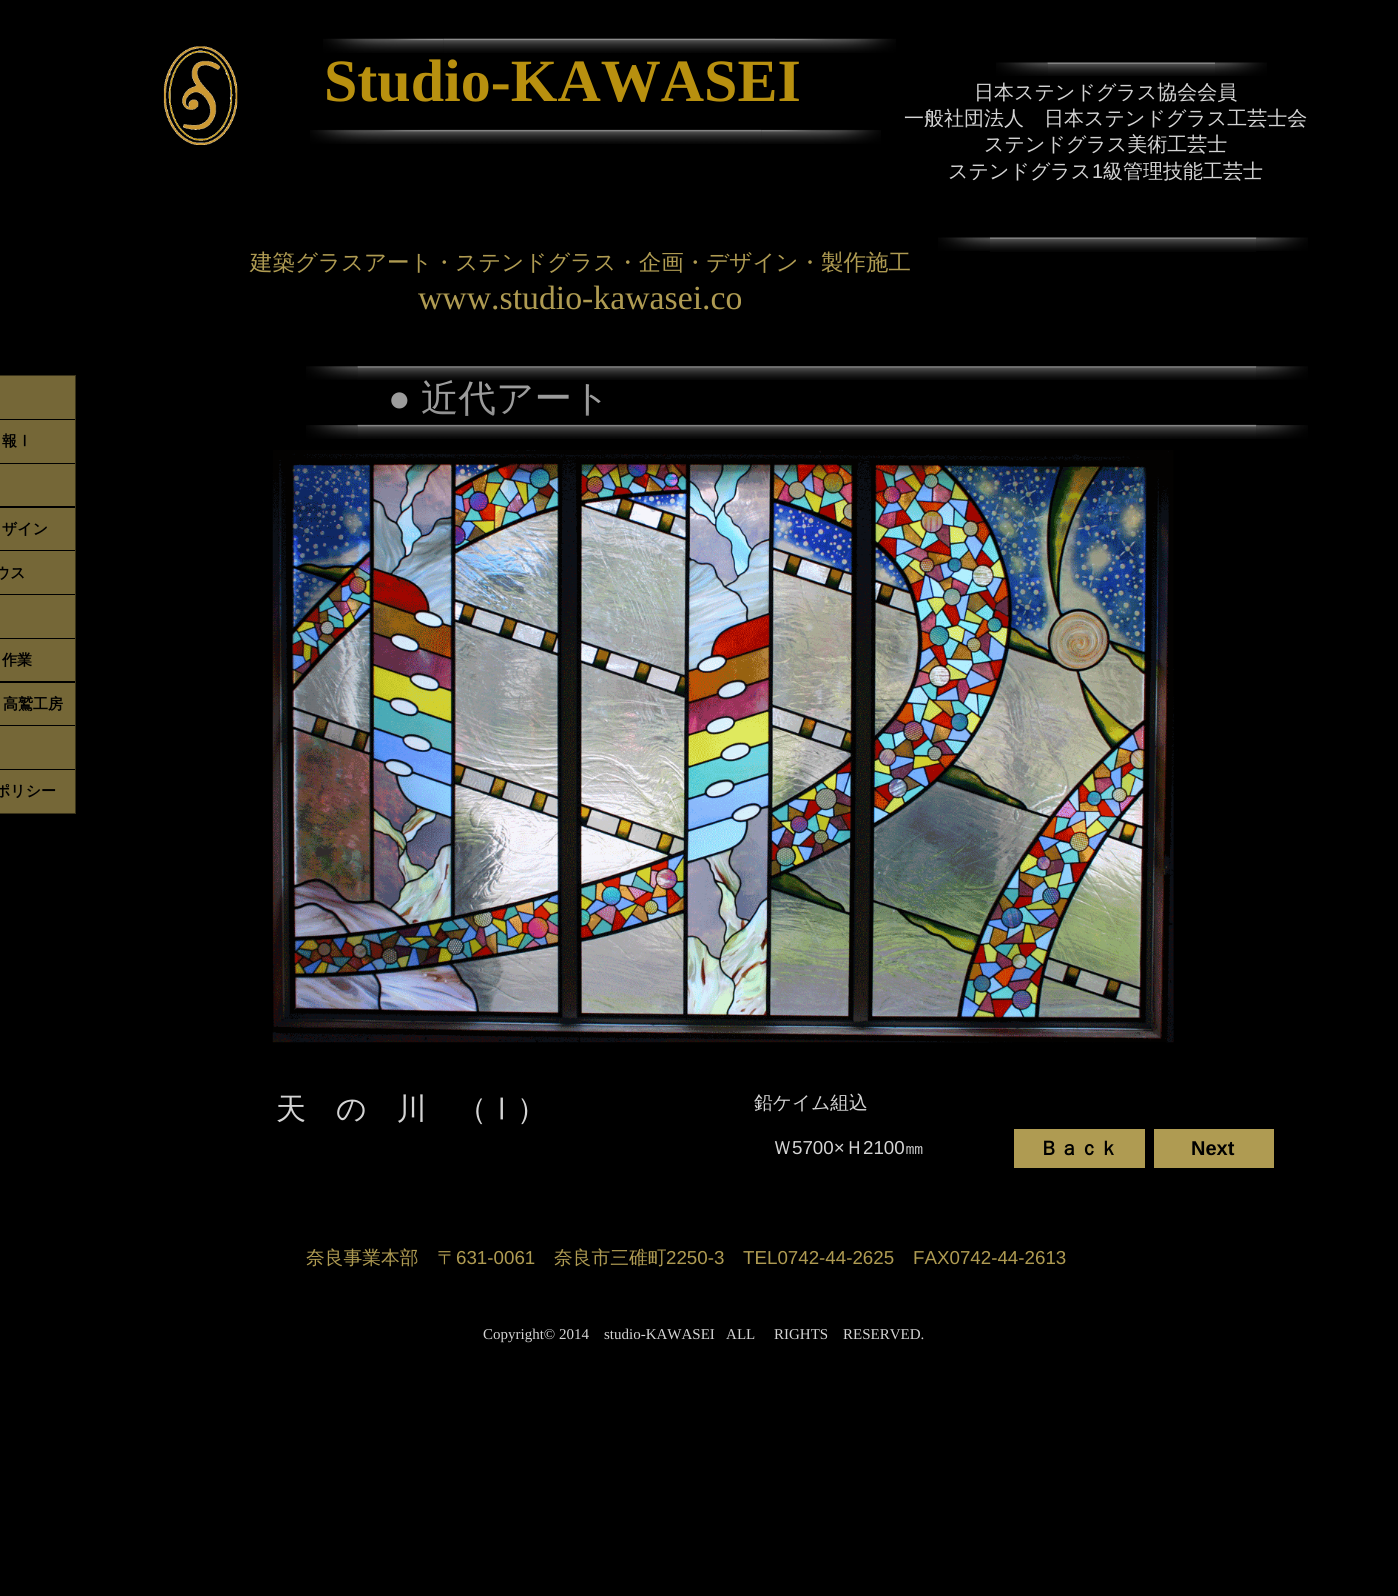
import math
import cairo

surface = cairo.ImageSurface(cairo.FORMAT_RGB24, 1398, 1596)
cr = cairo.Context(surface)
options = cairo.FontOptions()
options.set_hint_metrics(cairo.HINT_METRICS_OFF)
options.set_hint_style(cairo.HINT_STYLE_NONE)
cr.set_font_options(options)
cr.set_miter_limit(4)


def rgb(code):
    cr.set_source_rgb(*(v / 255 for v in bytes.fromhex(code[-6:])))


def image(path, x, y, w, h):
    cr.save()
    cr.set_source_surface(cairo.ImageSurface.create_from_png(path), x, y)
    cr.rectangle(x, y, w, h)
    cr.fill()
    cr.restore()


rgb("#000000")
cr.paint()
image("img/1.png", 163, 46, 75, 99)
image("img/3.png", 443, 38, 332, 15)
image("img/2.png", 323, 38, 121, 15)
image("img/4.png", 775, 38, 121, 15)
image("img/5.png", 1047, 62, 168, 14)
image("img/6.png", 996, 62, 52, 14)
image("img/7.png", 1215, 62, 52, 14)
image("img/8.png", 310, 129, 120, 15)
image("img/9.png", 430, 129, 332, 15)
image("img/10.png", 761, 129, 120, 15)
image("img/11.png", 990, 237, 267, 15)
image("img/12.png", 938, 237, 52, 14)
image("img/13.png", 1256, 237, 52, 14)
cr.rectangle(-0.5, 375.5, 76, 438)
rgb("#3a331b")
cr.set_line_width(1)
cr.stroke()
for x, y, w, h, color in [
    (0, 376, 75, 43, "#756737"),
    (0, 420, 75, 43, "#756737"),
    (0, 464, 75, 42, "#756737"),
    (0, 508, 75, 42, "#756737"),
    (0, 551, 75, 43, "#756737"),
    (0, 595, 75, 43, "#756737"),
    (0, 639, 75, 42, "#756737"),
    (0, 683, 75, 42, "#756737"),
    (0, 726, 75, 43, "#756737"),
    (0, 770, 75, 43, "#756737"),
]:
    rgb(color)
    cr.rectangle(x, y, w, h)
    cr.fill()
image("img/20.png", 272, 450, 902, 593)
rgb("#af9b52")
cr.rectangle(1014, 1129, 131, 39)
cr.fill()
cr.rectangle(1154, 1129, 120, 39)
cr.fill()
cr.select_font_face("Liberation Serif", cairo.FONT_SLANT_NORMAL, cairo.FONT_WEIGHT_BOLD)
cr.set_font_size(60)
rgb("#b8900f")
cr.move_to(324, 101)
cr.show_text("Studio-KAWASEI")
cr.select_font_face("WenQuanYi Zen Hei Medium")
cr.set_font_size(20)
rgb("#d4d4d4")
for x, y, s in [
    (974, 99, "日本ステンドグラス協会会員"),
    (904, 125, "一般社団法人　日本ステンドグラス工芸士会"),
    (984, 151, "ステンドグラス美術工芸士"),
    (948, 178, "ステンドグラス"),
]:
    cr.move_to(x, y)
    cr.show_text(s)
cr.select_font_face("Liberation Sans")
cr.move_to(1092, 178)
cr.show_text("1")
cr.select_font_face("WenQuanYi Zen Hei Medium")
cr.move_to(1103, 178)
cr.show_text("級管理技能工芸士")
cr.set_font_size(22.5)
rgb("#af9b52")
cr.move_to(250, 270)
cr.show_text("建築グラスアート・ステンドグラス・企画・デザイン・製作施工")
cr.select_font_face("Liberation Serif")
cr.set_font_size(33.75)
cr.move_to(418, 309)
cr.show_text("www.studio-kawasei.co")
cr.select_font_face("WenQuanYi Zen Hei", cairo.FONT_SLANT_NORMAL, cairo.FONT_WEIGHT_BOLD)
cr.set_font_size(15)
rgb("#000000")
for x, y, s in [
    (2, 446, "報Ⅰ"),
    (2, 534, "ザイン"),
    (-5, 578, "ウス"),
    (2, 665, "作業"),
    (3, 709, "高鷲工房"),
    (-5, 796, "ポリシー"),
]:
    cr.move_to(x, y)
    cr.show_text(s)
cr.select_font_face("Liberation Sans")
cr.set_font_size(37.5)
rgb("#9c9c9c")
cr.move_to(388, 411)
cr.show_text("●")
cr.select_font_face("WenQuanYi Zen Hei Medium")
cr.move_to(421, 411)
cr.show_text("近代アート")
image("img/14.png", 357, 366, 900, 14)
image("img/16.png", 1256, 366, 52, 14)
image("img/15.png", 306, 366, 52, 14)
image("img/17.png", 357, 410, 900, 29)
image("img/18.png", 306, 425, 52, 14)
image("img/19.png", 1256, 425, 52, 14)
cr.set_font_size(30)
rgb("#d4d4d4")
cr.move_to(276, 1119)
cr.show_text("天　の　川　（Ⅰ）")
cr.set_font_size(18.75)
cr.move_to(754, 1109)
cr.show_text("鉛ケイム組込")
cr.move_to(773, 1154)
cr.show_text("Ｗ")
cr.select_font_face("Liberation Sans")
cr.move_to(792, 1154)
cr.show_text("5700×")
cr.select_font_face("WenQuanYi Zen Hei Medium")
cr.move_to(845, 1154)
cr.show_text("Ｈ")
cr.select_font_face("Liberation Sans")
cr.move_to(863, 1154)
cr.show_text("2100")
cr.select_font_face("WenQuanYi Zen Hei Medium")
cr.move_to(905, 1154)
cr.show_text("㎜")
cr.select_font_face("WenQuanYi Zen Hei", cairo.FONT_SLANT_NORMAL, cairo.FONT_WEIGHT_BOLD)
cr.set_font_size(20)
rgb("#000000")
cr.move_to(1039, 1155)
cr.show_text("Ｂａｃｋ")
cr.select_font_face("Liberation Sans", cairo.FONT_SLANT_NORMAL, cairo.FONT_WEIGHT_BOLD)
cr.move_to(1191, 1155)
cr.show_text("Next")
cr.select_font_face("WenQuanYi Zen Hei Medium")
cr.set_font_size(18.75)
rgb("#af9b52")
cr.move_to(306, 1264)
cr.show_text("奈良事業本部　〒")
cr.select_font_face("Liberation Sans")
cr.move_to(456, 1264)
cr.show_text("631-0061")
cr.select_font_face("WenQuanYi Zen Hei Medium")
cr.move_to(554, 1264)
cr.show_text("奈良市三碓町")
cr.select_font_face("Liberation Sans")
for x, y, s in [
    (666, 1264, "2250-3"),
    (743, 1264, "TEL0742-44-2625"),
    (913, 1264, "FAX0742-44-2613"),
]:
    cr.move_to(x, y)
    cr.show_text(s)
cr.select_font_face("Liberation Serif")
cr.set_font_size(15)
rgb("#d4d4d4")
for x, y, s in [
    (483, 1339, "Copyright© 2014"),
    (604, 1339, "studio-KAWASEI   ALL"),
    (774, 1339, "RIGHTS"),
    (843, 1339, "RESERVED."),
]:
    cr.move_to(x, y)
    cr.show_text(s)
surface.write_to_png("page.png")
